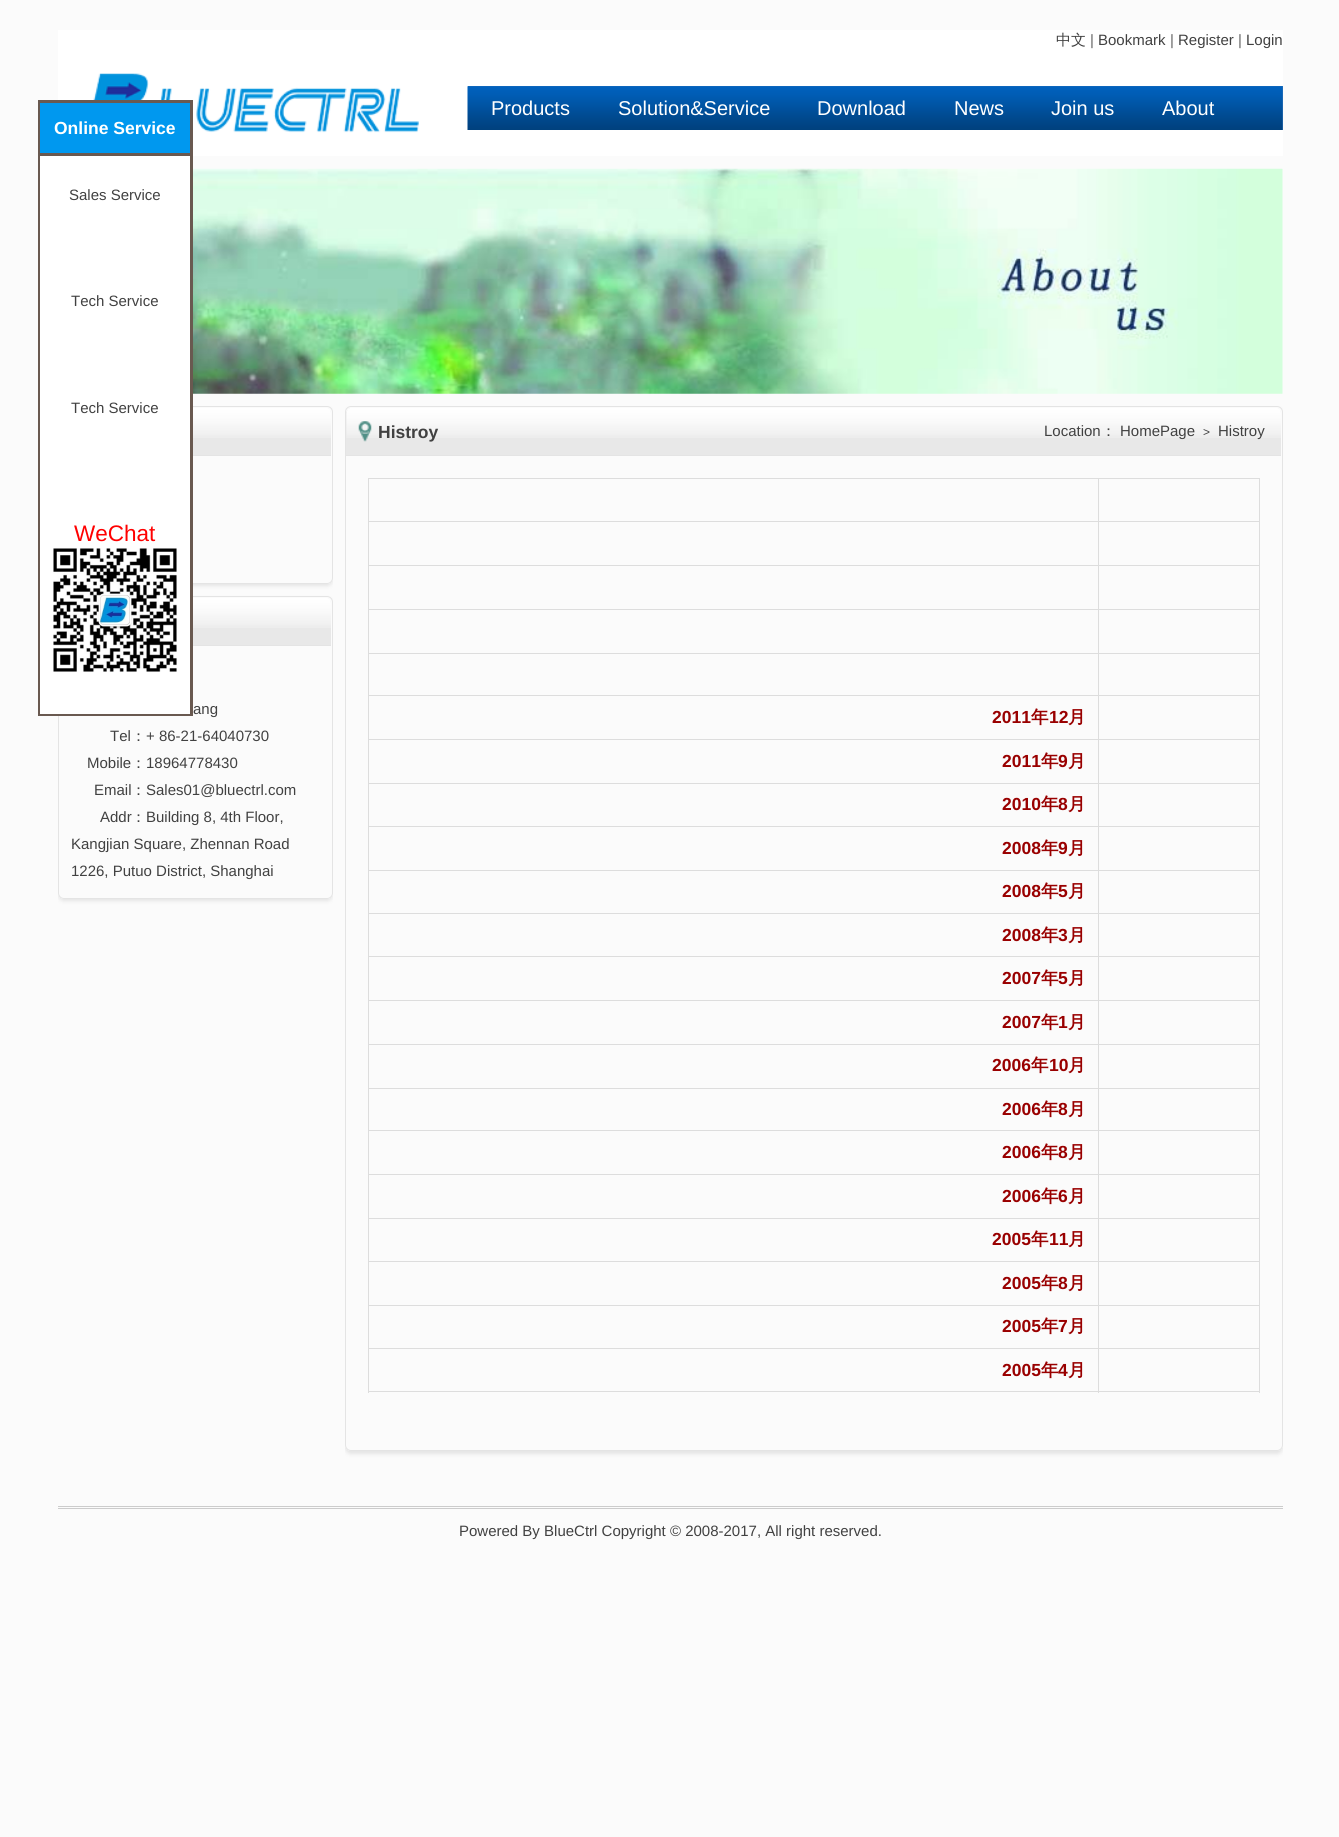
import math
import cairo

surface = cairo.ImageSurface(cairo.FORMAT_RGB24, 1339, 1837)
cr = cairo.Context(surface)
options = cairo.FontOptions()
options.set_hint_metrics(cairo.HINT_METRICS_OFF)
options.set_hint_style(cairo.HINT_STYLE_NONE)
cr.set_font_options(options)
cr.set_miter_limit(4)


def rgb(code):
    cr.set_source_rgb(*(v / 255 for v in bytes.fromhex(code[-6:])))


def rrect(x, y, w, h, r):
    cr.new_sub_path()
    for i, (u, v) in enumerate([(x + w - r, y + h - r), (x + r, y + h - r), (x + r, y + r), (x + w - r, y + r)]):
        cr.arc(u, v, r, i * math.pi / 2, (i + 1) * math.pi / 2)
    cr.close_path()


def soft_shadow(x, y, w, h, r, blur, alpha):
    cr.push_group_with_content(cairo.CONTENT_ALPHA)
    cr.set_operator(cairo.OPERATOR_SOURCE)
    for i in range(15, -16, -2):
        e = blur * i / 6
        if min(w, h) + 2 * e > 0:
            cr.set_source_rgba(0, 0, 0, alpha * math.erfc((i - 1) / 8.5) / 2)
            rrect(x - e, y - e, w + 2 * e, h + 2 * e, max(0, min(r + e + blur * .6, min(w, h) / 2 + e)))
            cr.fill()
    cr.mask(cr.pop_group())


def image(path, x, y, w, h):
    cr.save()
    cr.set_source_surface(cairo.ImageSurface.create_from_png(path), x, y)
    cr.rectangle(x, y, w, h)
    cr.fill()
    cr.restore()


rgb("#fbfbfb")
cr.paint()
rgb("#ffffff")
cr.rectangle(58, 30, 1225, 126)
cr.fill()
image("img/1.png", 93, 73, 326, 60)
rgb("#3375b9")
cr.rectangle(468, 86, 815, 44)
cr.fill()
image("img/2.png", 467, 86, 816, 44)
cr.save()
cr.rectangle(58, 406, 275, 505)
cr.clip()
cr.set_fill_rule(cairo.FILL_RULE_EVEN_ODD)
cr.new_path()
cr.move_to(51, 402)
cr.line_to(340, 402)
cr.line_to(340, 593)
cr.line_to(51, 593)
cr.close_path()
cr.move_to(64, 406)
cr.line_to(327, 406)
cr.curve_to(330.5, 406, 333, 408.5, 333, 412)
cr.line_to(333, 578)
cr.curve_to(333, 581.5, 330.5, 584, 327, 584)
cr.line_to(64, 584)
cr.curve_to(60.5, 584, 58, 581.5, 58, 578)
cr.line_to(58, 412)
cr.curve_to(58, 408.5, 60.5, 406, 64, 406)
cr.close_path()
cr.clip()
rgb("#e4e4e4")
soft_shadow(58, 409, 275, 177, 6, 2, 1)
cr.restore()
rrect(58.5, 406.5, 274, 177, 5.5)
rgb("#e4e4e4")
cr.set_line_width(1)
cr.stroke()
rgb("#e8e8e8")
cr.new_path()
cr.move_to(65, 408)
cr.line_to(325, 408)
cr.curve_to(328.5, 408, 331, 410.5, 331, 414)
cr.line_to(331, 456)
cr.line_to(59, 456)
cr.line_to(59, 414)
cr.curve_to(59, 410.5, 61.5, 408, 65, 408)
cr.close_path()
cr.fill()
cr.save()
cr.rectangle(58, 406, 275, 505)
cr.clip()
cr.set_fill_rule(cairo.FILL_RULE_EVEN_ODD)
cr.new_path()
cr.move_to(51, 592)
cr.line_to(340, 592)
cr.line_to(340, 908)
cr.line_to(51, 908)
cr.close_path()
cr.move_to(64, 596)
cr.line_to(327, 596)
cr.curve_to(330.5, 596, 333, 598.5, 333, 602)
cr.line_to(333, 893)
cr.curve_to(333, 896.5, 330.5, 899, 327, 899)
cr.line_to(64, 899)
cr.curve_to(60.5, 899, 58, 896.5, 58, 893)
cr.line_to(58, 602)
cr.curve_to(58, 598.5, 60.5, 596, 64, 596)
cr.close_path()
cr.clip()
rgb("#e4e4e4")
soft_shadow(58, 599, 275, 302, 6, 2, 1)
cr.restore()
rrect(58.5, 596.5, 274, 302, 5.5)
rgb("#e4e4e4")
cr.stroke()
rgb("#e8e8e8")
cr.new_path()
cr.move_to(65, 598)
cr.line_to(325, 598)
cr.curve_to(328.5, 598, 331, 600.5, 331, 604)
cr.line_to(331, 646)
cr.line_to(59, 646)
cr.line_to(59, 604)
cr.curve_to(59, 600.5, 61.5, 598, 65, 598)
cr.close_path()
cr.fill()
cr.rectangle(39.5, 101.5, 152, 613)
rgb("#695950")
cr.set_line_width(3)
cr.stroke()
for x, y, w, h, color in [
    (40, 156, 150, 558, "#ffffff"),
    (40, 103, 150, 50, "#0098ef"),
    (40, 153, 150, 3, "#695950"),
]:
    rgb(color)
    cr.rectangle(x, y, w, h)
    cr.fill()
image("img/3.png", 53, 548, 124, 124)
image("img/4.png", 193, 168, 1090, 226)
image("img/5.png", 193, 408, 138, 30)
rgb("#e4e4e4")
cr.rectangle(193, 455, 138, 1)
cr.fill()
image("img/5.png", 193, 598, 138, 30)
cr.rectangle(193, 645, 138, 1)
cr.fill()
cr.save()
cr.rectangle(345, 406, 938, 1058)
cr.clip()
cr.set_fill_rule(cairo.FILL_RULE_EVEN_ODD)
cr.new_path()
cr.move_to(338, 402)
cr.line_to(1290, 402)
cr.line_to(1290, 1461)
cr.line_to(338, 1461)
cr.close_path()
cr.move_to(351, 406)
cr.line_to(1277, 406)
cr.curve_to(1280.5, 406, 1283, 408.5, 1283, 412)
cr.line_to(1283, 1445)
cr.curve_to(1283, 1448.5, 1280.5, 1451, 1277, 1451)
cr.line_to(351, 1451)
cr.curve_to(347.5, 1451, 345, 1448.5, 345, 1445)
cr.line_to(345, 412)
cr.curve_to(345, 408.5, 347.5, 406, 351, 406)
cr.close_path()
cr.clip()
rgb("#e4e4e4")
soft_shadow(345, 409, 938, 1045, 6, 2, 1)
cr.restore()
rrect(345.5, 406.5, 937, 1044, 5.5)
cr.set_line_width(1)
cr.stroke()
rgb("#e8e8e8")
cr.new_path()
cr.move_to(352, 408)
cr.line_to(1275, 408)
cr.curve_to(1278.5, 408, 1281, 410.5, 1281, 414)
cr.line_to(1281, 456)
cr.line_to(346, 456)
cr.line_to(346, 414)
cr.curve_to(346, 410.5, 348.5, 408, 352, 408)
cr.close_path()
cr.fill()
image("img/6.png", 346, 408, 935, 30)
rgb("#e4e4e4")
cr.rectangle(346, 455, 935, 1)
cr.fill()
image("img/7.png", 358, 421, 14, 21)
for x, y, w, h, color in [
    (368, 478, 892, 1, "#dddddd"),
    (1259, 478, 1, 915, "#dddddd"),
    (368, 1391, 892, 1, "#dddddd"),
    (368, 478, 1, 915, "#dddddd"),
    (1098, 521, 162, 1, "#dddddd"),
    (1098, 565, 162, 1, "#dddddd"),
    (1098, 609, 162, 1, "#dddddd"),
    (1098, 653, 162, 1, "#dddddd"),
    (1098, 695, 162, 1, "#dddddd"),
    (1098, 739, 162, 1, "#dddddd"),
    (1098, 783, 162, 1, "#dddddd"),
    (1098, 826, 162, 1, "#dddddd"),
    (1098, 870, 162, 1, "#dddddd"),
    (1098, 913, 162, 1, "#dddddd"),
    (1098, 956, 162, 1, "#dddddd"),
    (1098, 1000, 162, 1, "#dddddd"),
    (1098, 1044, 162, 1, "#dddddd"),
    (1098, 1088, 162, 1, "#dddddd"),
    (1098, 1130, 162, 1, "#dddddd"),
    (1098, 1174, 162, 1, "#dddddd"),
    (1098, 1218, 162, 1, "#dddddd"),
    (1098, 1261, 162, 1, "#dddddd"),
    (1098, 1305, 162, 1, "#dddddd"),
    (1098, 1348, 162, 1, "#dddddd"),
    (1098, 1348, 1, 45, "#dddddd"),
    (368, 1348, 731, 1, "#dddddd"),
    (1098, 1305, 1, 44, "#dddddd"),
    (368, 1305, 731, 1, "#dddddd"),
    (1098, 1261, 1, 45, "#dddddd"),
    (368, 1261, 731, 1, "#dddddd"),
    (1098, 1218, 1, 45, "#dddddd"),
    (368, 1218, 731, 1, "#dddddd"),
    (1098, 1174, 1, 45, "#dddddd"),
    (368, 1174, 731, 1, "#dddddd"),
    (1098, 1130, 1, 45, "#dddddd"),
    (368, 1130, 731, 1, "#dddddd"),
    (1098, 1088, 1, 43, "#dddddd"),
    (368, 1088, 731, 1, "#dddddd"),
    (1098, 1044, 1, 45, "#dddddd"),
    (368, 1044, 731, 1, "#dddddd"),
    (1098, 1000, 1, 45, "#dddddd"),
    (368, 1000, 731, 1, "#dddddd"),
    (1098, 956, 1, 45, "#dddddd"),
    (368, 956, 731, 1, "#dddddd"),
    (1098, 913, 1, 45, "#dddddd"),
    (368, 913, 731, 1, "#dddddd"),
    (1098, 870, 1, 44, "#dddddd"),
    (368, 870, 731, 1, "#dddddd"),
    (1098, 826, 1, 45, "#dddddd"),
    (368, 826, 731, 1, "#dddddd"),
    (1098, 783, 1, 45, "#dddddd"),
    (368, 783, 731, 1, "#dddddd"),
    (1098, 739, 1, 45, "#dddddd"),
    (368, 739, 731, 1, "#dddddd"),
    (1098, 695, 1, 45, "#dddddd"),
    (368, 695, 731, 1, "#dddddd"),
    (1098, 653, 1, 43, "#dddddd"),
    (368, 653, 731, 1, "#dddddd"),
    (1098, 609, 1, 45, "#dddddd"),
    (368, 609, 731, 1, "#dddddd"),
    (1098, 565, 1, 45, "#dddddd"),
    (368, 565, 731, 1, "#dddddd"),
    (1098, 521, 1, 45, "#dddddd"),
    (368, 521, 731, 1, "#dddddd"),
    (1098, 478, 1, 45, "#dddddd"),
    (58, 1506, 1225, 1, "#cccccc"),
    (58, 1508, 1225, 1, "#cccccc"),
]:
    rgb(color)
    cr.rectangle(x, y, w, h)
    cr.fill()
cr.select_font_face("WenQuanYi Zen Hei Medium")
cr.set_font_size(15)
rgb("#414141")
cr.move_to(1056, 45)
cr.show_text("中文")
cr.select_font_face("Liberation Sans")
rgb("#666666")
cr.move_to(1090, 45)
cr.show_text("|")
rgb("#414141")
cr.move_to(1098, 45)
cr.show_text("Bookmark")
rgb("#666666")
cr.move_to(1170, 45)
cr.show_text("|")
rgb("#414141")
cr.move_to(1178, 45)
cr.show_text("Register")
rgb("#666666")
cr.move_to(1238, 45)
cr.show_text("|")
rgb("#414141")
cr.move_to(1246, 45)
cr.show_text("Login")
cr.set_font_size(20)
rgb("#ffffff")
for x, y, s in [
    (491, 115, "Products"),
    (618, 115, "Solution&Service"),
    (817, 115, "Download"),
    (954, 115, "News"),
    (1051, 115, "Join us"),
    (1162, 115, "About"),
]:
    cr.move_to(x, y)
    cr.show_text(s)
cr.select_font_face("Liberation Sans", cairo.FONT_SLANT_NORMAL, cairo.FONT_WEIGHT_BOLD)
cr.set_font_size(17.5)
cr.move_to(54, 134)
cr.show_text("Online Service")
cr.select_font_face("Liberation Sans")
cr.set_font_size(15)
rgb("#414141")
for x, y, s in [
    (69, 200, "Sales Service"),
    (71, 306, "Tech Service"),
    (71, 413, "Tech Service"),
]:
    cr.move_to(x, y)
    cr.show_text(s)
cr.set_font_size(22.5)
rgb("#ff0000")
cr.move_to(74, 541)
cr.show_text("WeChat")
cr.set_font_size(15)
rgb("#414141")
cr.move_to(193, 714)
cr.show_text("ang")
cr.move_to(110, 741)
cr.show_text("Tel")
cr.select_font_face("WenQuanYi Zen Hei Medium")
cr.move_to(131, 741)
cr.show_text("：")
cr.select_font_face("Liberation Sans")
cr.move_to(146, 741)
cr.show_text("+ 86-21-64040730")
cr.move_to(87, 768)
cr.show_text("Mobile")
cr.select_font_face("WenQuanYi Zen Hei Medium")
cr.move_to(131, 768)
cr.show_text("：")
cr.select_font_face("Liberation Sans")
cr.move_to(146, 768)
cr.show_text("18964778430")
cr.move_to(94, 795)
cr.show_text("Email")
cr.select_font_face("WenQuanYi Zen Hei Medium")
cr.move_to(131, 795)
cr.show_text("：")
cr.select_font_face("Liberation Sans")
cr.move_to(146, 795)
cr.show_text("Sales01@bluectrl.com")
cr.move_to(100, 822)
cr.show_text("Addr")
cr.select_font_face("WenQuanYi Zen Hei Medium")
cr.move_to(131, 822)
cr.show_text("：")
cr.select_font_face("Liberation Sans")
for x, y, s in [
    (146, 822, "Building 8, 4th Floor,"),
    (71, 849, "Kangjian Square, Zhennan Road"),
    (71, 876, "1226, Putuo District, Shanghai"),
]:
    cr.move_to(x, y)
    cr.show_text(s)
cr.select_font_face("Liberation Sans", cairo.FONT_SLANT_NORMAL, cairo.FONT_WEIGHT_BOLD)
cr.set_font_size(17.5)
cr.move_to(378, 438)
cr.show_text("Histroy")
cr.select_font_face("Liberation Sans")
cr.set_font_size(15)
cr.move_to(1044, 436)
cr.show_text("Location")
cr.select_font_face("WenQuanYi Zen Hei Medium")
cr.move_to(1101, 436)
cr.show_text("：")
cr.select_font_face("Liberation Sans")
cr.move_to(1120, 436)
cr.show_text("HomePage")
cr.set_font_size(12)
cr.move_to(1203, 436)
cr.show_text(">")
cr.set_font_size(15)
cr.move_to(1218, 436)
cr.show_text("Histroy")
cr.select_font_face("Liberation Sans", cairo.FONT_SLANT_NORMAL, cairo.FONT_WEIGHT_BOLD)
cr.set_font_size(17.5)
rgb("#990000")
cr.move_to(992, 723)
cr.show_text("2011")
cr.select_font_face("WenQuanYi Zen Hei", cairo.FONT_SLANT_NORMAL, cairo.FONT_WEIGHT_BOLD)
cr.move_to(1031, 723)
cr.show_text("年")
cr.select_font_face("Liberation Sans", cairo.FONT_SLANT_NORMAL, cairo.FONT_WEIGHT_BOLD)
cr.move_to(1049, 723)
cr.show_text("12")
cr.select_font_face("WenQuanYi Zen Hei", cairo.FONT_SLANT_NORMAL, cairo.FONT_WEIGHT_BOLD)
cr.move_to(1068, 723)
cr.show_text("月")
cr.select_font_face("Liberation Sans", cairo.FONT_SLANT_NORMAL, cairo.FONT_WEIGHT_BOLD)
cr.move_to(1002, 767)
cr.show_text("2011")
cr.select_font_face("WenQuanYi Zen Hei", cairo.FONT_SLANT_NORMAL, cairo.FONT_WEIGHT_BOLD)
cr.move_to(1041, 767)
cr.show_text("年")
cr.select_font_face("Liberation Sans", cairo.FONT_SLANT_NORMAL, cairo.FONT_WEIGHT_BOLD)
cr.move_to(1058, 767)
cr.show_text("9")
cr.select_font_face("WenQuanYi Zen Hei", cairo.FONT_SLANT_NORMAL, cairo.FONT_WEIGHT_BOLD)
cr.move_to(1068, 767)
cr.show_text("月")
cr.select_font_face("Liberation Sans", cairo.FONT_SLANT_NORMAL, cairo.FONT_WEIGHT_BOLD)
cr.move_to(1002, 810)
cr.show_text("2010")
cr.select_font_face("WenQuanYi Zen Hei", cairo.FONT_SLANT_NORMAL, cairo.FONT_WEIGHT_BOLD)
cr.move_to(1041, 810)
cr.show_text("年")
cr.select_font_face("Liberation Sans", cairo.FONT_SLANT_NORMAL, cairo.FONT_WEIGHT_BOLD)
cr.move_to(1058, 810)
cr.show_text("8")
cr.select_font_face("WenQuanYi Zen Hei", cairo.FONT_SLANT_NORMAL, cairo.FONT_WEIGHT_BOLD)
cr.move_to(1068, 810)
cr.show_text("月")
cr.select_font_face("Liberation Sans", cairo.FONT_SLANT_NORMAL, cairo.FONT_WEIGHT_BOLD)
cr.move_to(1002, 854)
cr.show_text("2008")
cr.select_font_face("WenQuanYi Zen Hei", cairo.FONT_SLANT_NORMAL, cairo.FONT_WEIGHT_BOLD)
cr.move_to(1041, 854)
cr.show_text("年")
cr.select_font_face("Liberation Sans", cairo.FONT_SLANT_NORMAL, cairo.FONT_WEIGHT_BOLD)
cr.move_to(1058, 854)
cr.show_text("9")
cr.select_font_face("WenQuanYi Zen Hei", cairo.FONT_SLANT_NORMAL, cairo.FONT_WEIGHT_BOLD)
cr.move_to(1068, 854)
cr.show_text("月")
cr.select_font_face("Liberation Sans", cairo.FONT_SLANT_NORMAL, cairo.FONT_WEIGHT_BOLD)
cr.move_to(1002, 897)
cr.show_text("2008")
cr.select_font_face("WenQuanYi Zen Hei", cairo.FONT_SLANT_NORMAL, cairo.FONT_WEIGHT_BOLD)
cr.move_to(1041, 897)
cr.show_text("年")
cr.select_font_face("Liberation Sans", cairo.FONT_SLANT_NORMAL, cairo.FONT_WEIGHT_BOLD)
cr.move_to(1058, 897)
cr.show_text("5")
cr.select_font_face("WenQuanYi Zen Hei", cairo.FONT_SLANT_NORMAL, cairo.FONT_WEIGHT_BOLD)
cr.move_to(1068, 897)
cr.show_text("月")
cr.select_font_face("Liberation Sans", cairo.FONT_SLANT_NORMAL, cairo.FONT_WEIGHT_BOLD)
cr.move_to(1002, 941)
cr.show_text("2008")
cr.select_font_face("WenQuanYi Zen Hei", cairo.FONT_SLANT_NORMAL, cairo.FONT_WEIGHT_BOLD)
cr.move_to(1041, 941)
cr.show_text("年")
cr.select_font_face("Liberation Sans", cairo.FONT_SLANT_NORMAL, cairo.FONT_WEIGHT_BOLD)
cr.move_to(1058, 941)
cr.show_text("3")
cr.select_font_face("WenQuanYi Zen Hei", cairo.FONT_SLANT_NORMAL, cairo.FONT_WEIGHT_BOLD)
cr.move_to(1068, 941)
cr.show_text("月")
cr.select_font_face("Liberation Sans", cairo.FONT_SLANT_NORMAL, cairo.FONT_WEIGHT_BOLD)
cr.move_to(1002, 984)
cr.show_text("2007")
cr.select_font_face("WenQuanYi Zen Hei", cairo.FONT_SLANT_NORMAL, cairo.FONT_WEIGHT_BOLD)
cr.move_to(1041, 984)
cr.show_text("年")
cr.select_font_face("Liberation Sans", cairo.FONT_SLANT_NORMAL, cairo.FONT_WEIGHT_BOLD)
cr.move_to(1058, 984)
cr.show_text("5")
cr.select_font_face("WenQuanYi Zen Hei", cairo.FONT_SLANT_NORMAL, cairo.FONT_WEIGHT_BOLD)
cr.move_to(1068, 984)
cr.show_text("月")
cr.select_font_face("Liberation Sans", cairo.FONT_SLANT_NORMAL, cairo.FONT_WEIGHT_BOLD)
cr.move_to(1002, 1028)
cr.show_text("2007")
cr.select_font_face("WenQuanYi Zen Hei", cairo.FONT_SLANT_NORMAL, cairo.FONT_WEIGHT_BOLD)
cr.move_to(1041, 1028)
cr.show_text("年")
cr.select_font_face("Liberation Sans", cairo.FONT_SLANT_NORMAL, cairo.FONT_WEIGHT_BOLD)
cr.move_to(1058, 1028)
cr.show_text("1")
cr.select_font_face("WenQuanYi Zen Hei", cairo.FONT_SLANT_NORMAL, cairo.FONT_WEIGHT_BOLD)
cr.move_to(1068, 1028)
cr.show_text("月")
cr.select_font_face("Liberation Sans", cairo.FONT_SLANT_NORMAL, cairo.FONT_WEIGHT_BOLD)
cr.move_to(992, 1071)
cr.show_text("2006")
cr.select_font_face("WenQuanYi Zen Hei", cairo.FONT_SLANT_NORMAL, cairo.FONT_WEIGHT_BOLD)
cr.move_to(1031, 1071)
cr.show_text("年")
cr.select_font_face("Liberation Sans", cairo.FONT_SLANT_NORMAL, cairo.FONT_WEIGHT_BOLD)
cr.move_to(1049, 1071)
cr.show_text("10")
cr.select_font_face("WenQuanYi Zen Hei", cairo.FONT_SLANT_NORMAL, cairo.FONT_WEIGHT_BOLD)
cr.move_to(1068, 1071)
cr.show_text("月")
cr.select_font_face("Liberation Sans", cairo.FONT_SLANT_NORMAL, cairo.FONT_WEIGHT_BOLD)
cr.move_to(1002, 1115)
cr.show_text("2006")
cr.select_font_face("WenQuanYi Zen Hei", cairo.FONT_SLANT_NORMAL, cairo.FONT_WEIGHT_BOLD)
cr.move_to(1041, 1115)
cr.show_text("年")
cr.select_font_face("Liberation Sans", cairo.FONT_SLANT_NORMAL, cairo.FONT_WEIGHT_BOLD)
cr.move_to(1058, 1115)
cr.show_text("8")
cr.select_font_face("WenQuanYi Zen Hei", cairo.FONT_SLANT_NORMAL, cairo.FONT_WEIGHT_BOLD)
cr.move_to(1068, 1115)
cr.show_text("月")
cr.select_font_face("Liberation Sans", cairo.FONT_SLANT_NORMAL, cairo.FONT_WEIGHT_BOLD)
cr.move_to(1002, 1158)
cr.show_text("2006")
cr.select_font_face("WenQuanYi Zen Hei", cairo.FONT_SLANT_NORMAL, cairo.FONT_WEIGHT_BOLD)
cr.move_to(1041, 1158)
cr.show_text("年")
cr.select_font_face("Liberation Sans", cairo.FONT_SLANT_NORMAL, cairo.FONT_WEIGHT_BOLD)
cr.move_to(1058, 1158)
cr.show_text("8")
cr.select_font_face("WenQuanYi Zen Hei", cairo.FONT_SLANT_NORMAL, cairo.FONT_WEIGHT_BOLD)
cr.move_to(1068, 1158)
cr.show_text("月")
cr.select_font_face("Liberation Sans", cairo.FONT_SLANT_NORMAL, cairo.FONT_WEIGHT_BOLD)
cr.move_to(1002, 1202)
cr.show_text("2006")
cr.select_font_face("WenQuanYi Zen Hei", cairo.FONT_SLANT_NORMAL, cairo.FONT_WEIGHT_BOLD)
cr.move_to(1041, 1202)
cr.show_text("年")
cr.select_font_face("Liberation Sans", cairo.FONT_SLANT_NORMAL, cairo.FONT_WEIGHT_BOLD)
cr.move_to(1058, 1202)
cr.show_text("6")
cr.select_font_face("WenQuanYi Zen Hei", cairo.FONT_SLANT_NORMAL, cairo.FONT_WEIGHT_BOLD)
cr.move_to(1068, 1202)
cr.show_text("月")
cr.select_font_face("Liberation Sans", cairo.FONT_SLANT_NORMAL, cairo.FONT_WEIGHT_BOLD)
cr.move_to(992, 1245)
cr.show_text("2005")
cr.select_font_face("WenQuanYi Zen Hei", cairo.FONT_SLANT_NORMAL, cairo.FONT_WEIGHT_BOLD)
cr.move_to(1031, 1245)
cr.show_text("年")
cr.select_font_face("Liberation Sans", cairo.FONT_SLANT_NORMAL, cairo.FONT_WEIGHT_BOLD)
cr.move_to(1049, 1245)
cr.show_text("11")
cr.select_font_face("WenQuanYi Zen Hei", cairo.FONT_SLANT_NORMAL, cairo.FONT_WEIGHT_BOLD)
cr.move_to(1068, 1245)
cr.show_text("月")
cr.select_font_face("Liberation Sans", cairo.FONT_SLANT_NORMAL, cairo.FONT_WEIGHT_BOLD)
cr.move_to(1002, 1289)
cr.show_text("2005")
cr.select_font_face("WenQuanYi Zen Hei", cairo.FONT_SLANT_NORMAL, cairo.FONT_WEIGHT_BOLD)
cr.move_to(1041, 1289)
cr.show_text("年")
cr.select_font_face("Liberation Sans", cairo.FONT_SLANT_NORMAL, cairo.FONT_WEIGHT_BOLD)
cr.move_to(1058, 1289)
cr.show_text("8")
cr.select_font_face("WenQuanYi Zen Hei", cairo.FONT_SLANT_NORMAL, cairo.FONT_WEIGHT_BOLD)
cr.move_to(1068, 1289)
cr.show_text("月")
cr.select_font_face("Liberation Sans", cairo.FONT_SLANT_NORMAL, cairo.FONT_WEIGHT_BOLD)
cr.move_to(1002, 1332)
cr.show_text("2005")
cr.select_font_face("WenQuanYi Zen Hei", cairo.FONT_SLANT_NORMAL, cairo.FONT_WEIGHT_BOLD)
cr.move_to(1041, 1332)
cr.show_text("年")
cr.select_font_face("Liberation Sans", cairo.FONT_SLANT_NORMAL, cairo.FONT_WEIGHT_BOLD)
cr.move_to(1058, 1332)
cr.show_text("7")
cr.select_font_face("WenQuanYi Zen Hei", cairo.FONT_SLANT_NORMAL, cairo.FONT_WEIGHT_BOLD)
cr.move_to(1068, 1332)
cr.show_text("月")
cr.select_font_face("Liberation Sans", cairo.FONT_SLANT_NORMAL, cairo.FONT_WEIGHT_BOLD)
cr.move_to(1002, 1376)
cr.show_text("2005")
cr.select_font_face("WenQuanYi Zen Hei", cairo.FONT_SLANT_NORMAL, cairo.FONT_WEIGHT_BOLD)
cr.move_to(1041, 1376)
cr.show_text("年")
cr.select_font_face("Liberation Sans", cairo.FONT_SLANT_NORMAL, cairo.FONT_WEIGHT_BOLD)
cr.move_to(1058, 1376)
cr.show_text("4")
cr.select_font_face("WenQuanYi Zen Hei", cairo.FONT_SLANT_NORMAL, cairo.FONT_WEIGHT_BOLD)
cr.move_to(1068, 1376)
cr.show_text("月")
cr.select_font_face("Liberation Sans")
cr.set_font_size(15)
rgb("#414141")
cr.move_to(459, 1536)
cr.show_text("Powered By BlueCtrl Copyright © 2008-2017, All right reserved.")
surface.write_to_png("page.png")
